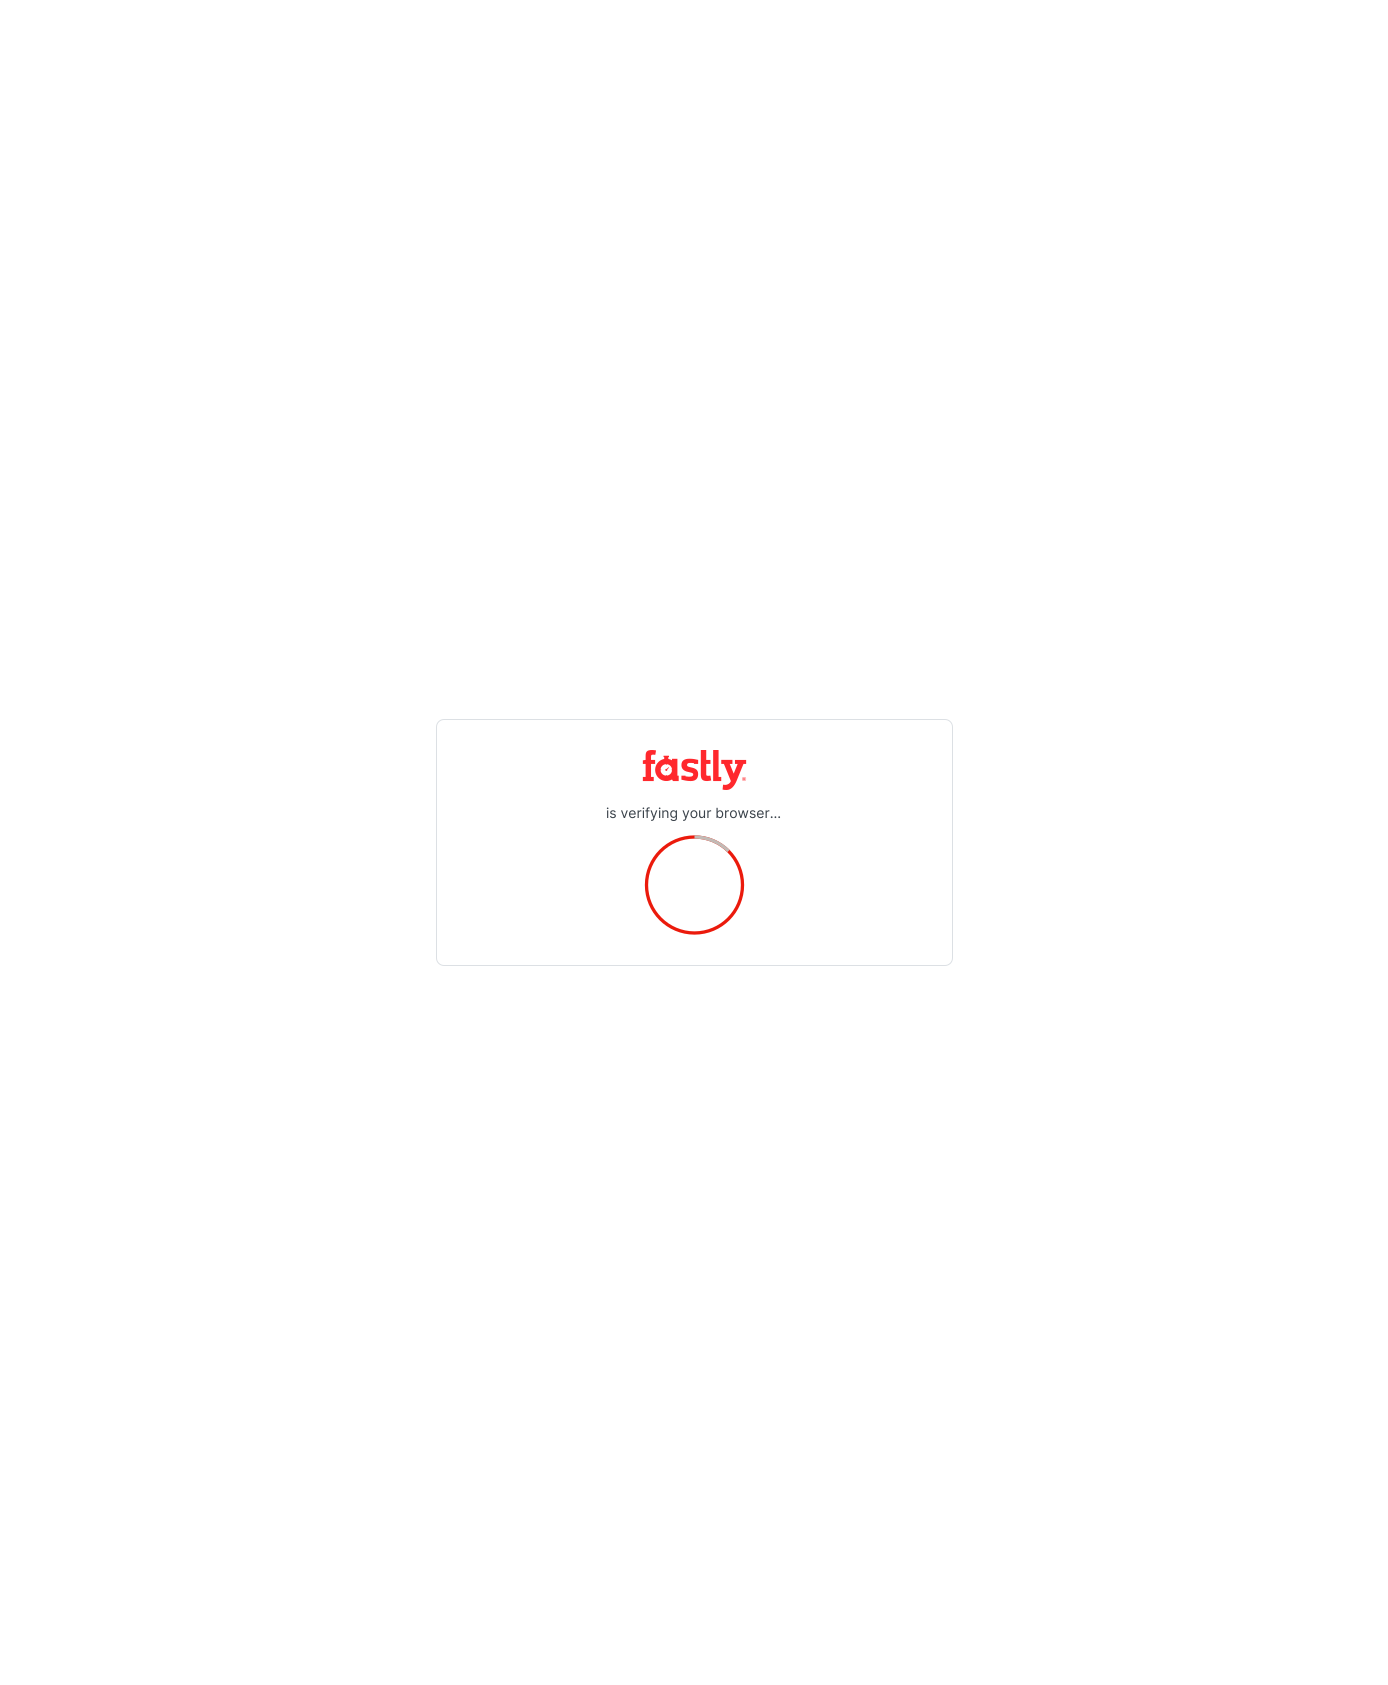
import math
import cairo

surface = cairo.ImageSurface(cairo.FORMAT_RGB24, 1388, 1685)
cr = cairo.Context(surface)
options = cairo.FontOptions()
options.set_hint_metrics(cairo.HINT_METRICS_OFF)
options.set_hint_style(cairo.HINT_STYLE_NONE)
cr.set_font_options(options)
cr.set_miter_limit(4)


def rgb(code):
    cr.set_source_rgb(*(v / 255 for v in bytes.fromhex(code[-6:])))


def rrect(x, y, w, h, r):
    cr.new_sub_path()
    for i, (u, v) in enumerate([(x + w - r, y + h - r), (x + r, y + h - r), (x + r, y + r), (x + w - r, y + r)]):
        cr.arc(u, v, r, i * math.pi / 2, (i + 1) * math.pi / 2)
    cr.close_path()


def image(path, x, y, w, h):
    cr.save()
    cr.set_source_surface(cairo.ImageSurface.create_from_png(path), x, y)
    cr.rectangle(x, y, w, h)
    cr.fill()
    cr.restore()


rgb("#ffffff")
cr.paint()
rrect(436.5, 719.5, 516, 246, 7.5)
rgb("#dce0e4")
cr.set_line_width(1)
cr.stroke()
image("img/1.png", 642, 750, 105, 40)
cr.new_path()
cr.move_to(646.5, 885)
cr.curve_to(646.5, 858.5, 668, 837, 694.5, 837)
cr.curve_to(721, 837, 742.5, 858.5, 742.5, 885)
cr.curve_to(742.5, 911.5, 721, 933, 694.5, 933)
cr.curve_to(668, 933, 646.5, 911.5, 646.5, 885)
cr.close_path()
rgb("#eb1a0c")
cr.set_line_width(3.3)
cr.stroke()
cr.new_path()
cr.move_to(728.5, 851)
cr.curve_to(719.5, 842, 707, 837, 694.5, 837)
rgb("#c2bab5")
cr.stroke()
cr.select_font_face("Inter")
cr.set_font_size(14)
rgb("#3a424a")
cr.move_to(606, 818)
cr.show_text("is verifying your browser...")
surface.write_to_png("page.png")
